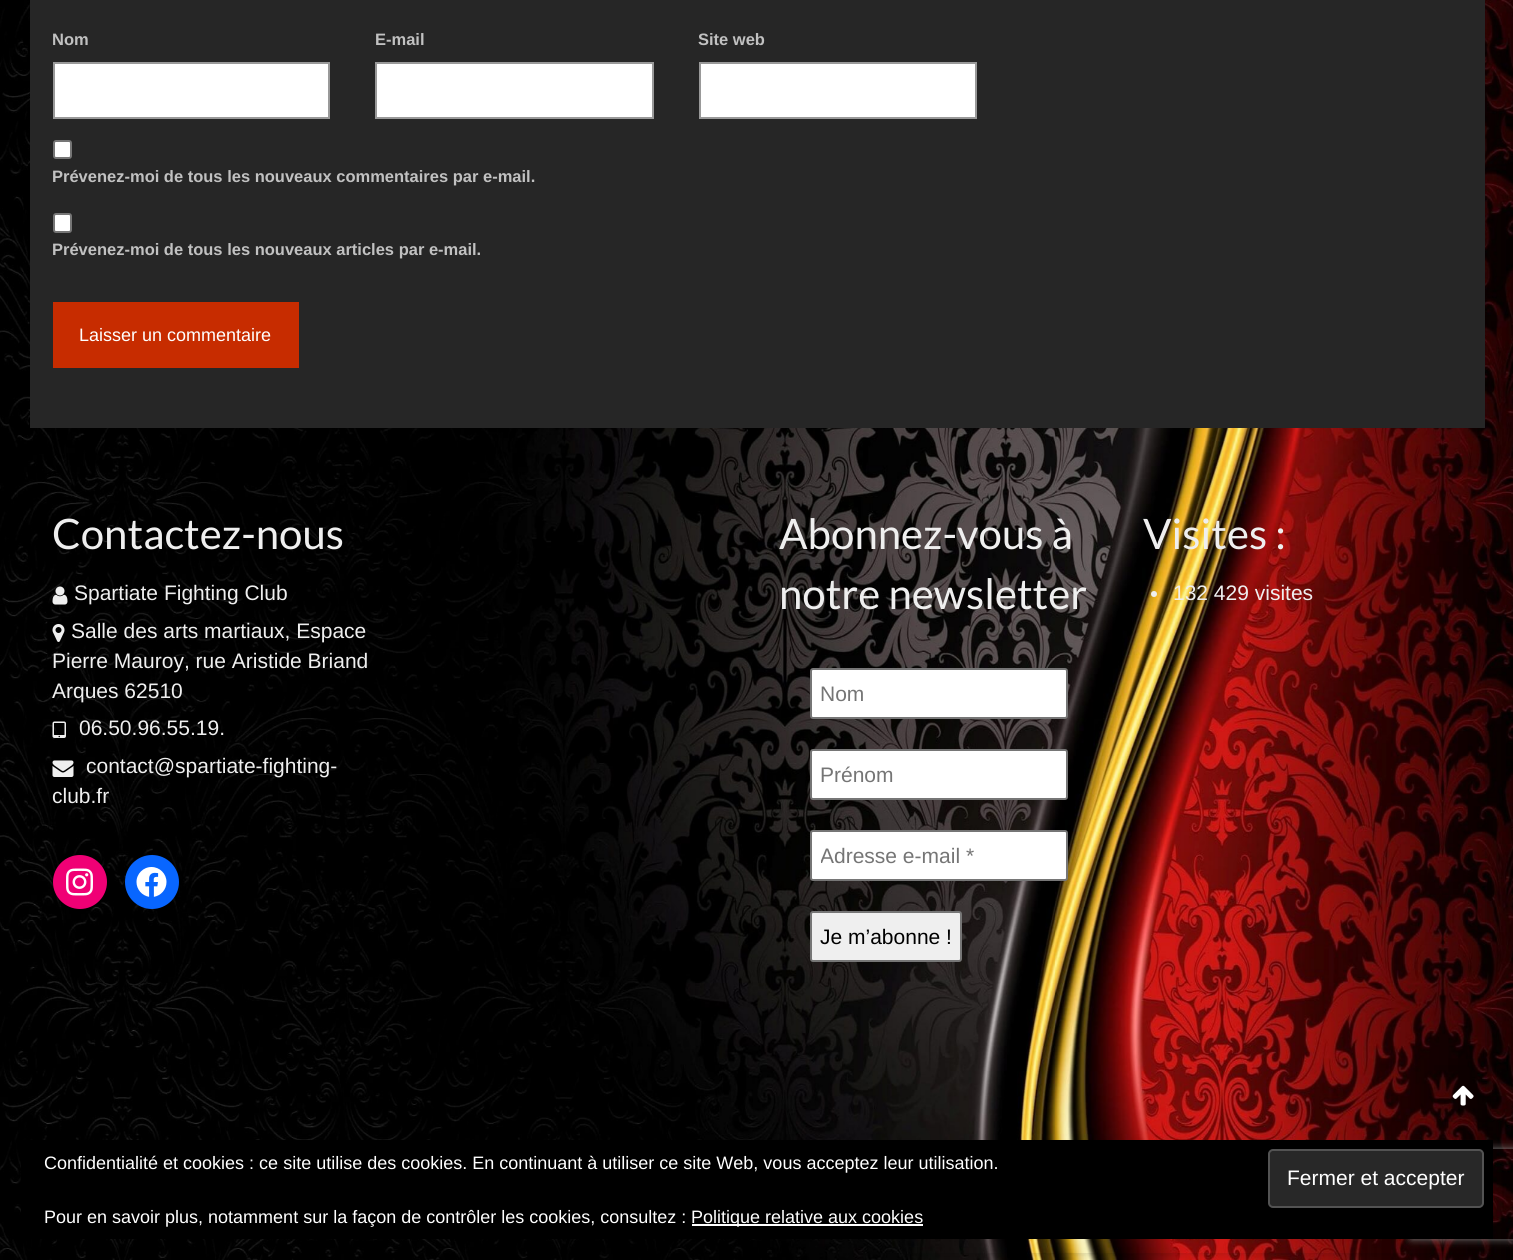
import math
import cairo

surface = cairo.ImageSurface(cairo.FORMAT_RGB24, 1513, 1260)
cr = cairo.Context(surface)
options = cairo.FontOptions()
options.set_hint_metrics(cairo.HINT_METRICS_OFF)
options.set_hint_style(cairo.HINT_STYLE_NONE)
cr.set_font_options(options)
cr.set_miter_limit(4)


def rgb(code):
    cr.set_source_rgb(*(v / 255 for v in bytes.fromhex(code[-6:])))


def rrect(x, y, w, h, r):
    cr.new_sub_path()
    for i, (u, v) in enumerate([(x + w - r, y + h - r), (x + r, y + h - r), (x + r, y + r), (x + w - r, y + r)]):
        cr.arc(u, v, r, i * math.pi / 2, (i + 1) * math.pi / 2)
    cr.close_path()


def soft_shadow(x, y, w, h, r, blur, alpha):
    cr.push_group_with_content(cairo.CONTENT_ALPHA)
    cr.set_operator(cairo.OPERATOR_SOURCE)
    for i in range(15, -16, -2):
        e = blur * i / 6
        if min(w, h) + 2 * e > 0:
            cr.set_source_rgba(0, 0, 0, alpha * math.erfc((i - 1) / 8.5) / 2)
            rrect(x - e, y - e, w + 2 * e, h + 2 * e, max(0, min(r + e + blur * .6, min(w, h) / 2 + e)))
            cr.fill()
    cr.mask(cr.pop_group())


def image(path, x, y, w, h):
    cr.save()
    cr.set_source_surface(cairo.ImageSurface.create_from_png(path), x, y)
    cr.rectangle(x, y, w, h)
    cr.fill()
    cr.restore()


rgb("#ffffff")
cr.paint()
image("img/1.png", 0, 0, 1513, 1260)
cr.save()
cr.set_fill_rule(cairo.FILL_RULE_EVEN_ODD)
cr.new_path()
cr.move_to(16, 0)
cr.line_to(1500, 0)
cr.line_to(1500, 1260)
cr.line_to(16, 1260)
cr.close_path()
cr.move_to(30, -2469)
cr.line_to(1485, -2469)
cr.line_to(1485, 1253)
cr.line_to(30, 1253)
cr.close_path()
cr.clip()
rgb("#000000")
soft_shadow(29, -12, 1458, 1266, 0, 4, 0.16)
cr.restore()
rgb("#262626")
cr.rectangle(30, 0, 1455, 428)
cr.fill()
rgb("#ffffff")
cr.rectangle(54, 63, 275, 55)
cr.fill_preserve()
rgb("#999999")
cr.stroke()
rgb("#ffffff")
cr.rectangle(376, 63, 277, 55)
cr.fill_preserve()
rgb("#999999")
cr.stroke()
rgb("#ffffff")
cr.rectangle(700, 63, 276, 55)
cr.fill_preserve()
rgb("#999999")
cr.stroke()
rgb("#ffffff")
rrect(54, 141, 17, 17, 2)
cr.fill_preserve()
rgb("#767676")
cr.stroke()
rgb("#ffffff")
rrect(54, 214, 17, 18, 2)
cr.fill_preserve()
rgb("#767676")
cr.stroke()
rgb("#c72c00")
cr.rectangle(53, 302, 246, 66)
cr.fill()
image("img/2.png", 52, 586, 16, 19)
image("img/3.png", 52, 624, 13, 18)
image("img/4.png", 52, 721, 14, 17)
image("img/5.png", 52, 760, 22, 17)
rgb("#f00075")
cr.arc(80, 882, 27, 0, 2 * math.pi)
cr.fill()
image("img/6.png", 66, 868, 27, 28)
rgb("#0866ff")
cr.arc(152, 882, 27, 0, 2 * math.pi)
cr.fill()
image("img/7.png", 136, 867, 31, 30)
rgb("#ffffff")
rrect(811, 669, 256, 49, 2)
cr.fill_preserve()
rgb("#767676")
cr.stroke()
rgb("#ffffff")
rrect(811, 750, 256, 49, 2)
cr.fill_preserve()
rgb("#767676")
cr.stroke()
rgb("#ffffff")
rrect(811, 831, 256, 49, 2)
cr.fill_preserve()
rgb("#767676")
cr.stroke()
rgb("#efefef")
rrect(811, 912, 150, 49, 2)
cr.fill_preserve()
rgb("#767676")
cr.stroke()
rgb("#efefef")
cr.arc(1154, 594, 3, 0, 2 * math.pi)
cr.fill()
cr.set_source_rgba(0, 0, 0, 0.1)
cr.rectangle(1434, 1065, 57, 57)
cr.fill()
image("img/8.png", 1452, 1085, 22, 21)
cr.save()
cr.set_fill_rule(cairo.FILL_RULE_EVEN_ODD)
cr.new_path()
cr.move_to(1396, 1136)
cr.line_to(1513, 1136)
cr.line_to(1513, 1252)
cr.line_to(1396, 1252)
cr.close_path()
cr.move_to(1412, 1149)
cr.line_to(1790, 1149)
cr.curve_to(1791.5, 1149, 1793, 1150.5, 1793, 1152)
cr.line_to(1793, 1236)
cr.curve_to(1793, 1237.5, 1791.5, 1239, 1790, 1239)
cr.line_to(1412, 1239)
cr.curve_to(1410.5, 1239, 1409, 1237.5, 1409, 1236)
cr.line_to(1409, 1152)
cr.curve_to(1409, 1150.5, 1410.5, 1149, 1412, 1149)
cr.close_path()
cr.clip()
rgb("#808080")
soft_shadow(1409, 1149, 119, 90, 3, 4, 1)
cr.restore()
rgb("#000000")
cr.rectangle(21, 1140, 1472, 99)
cr.fill()
rgb("#282828")
rrect(1269, 1150, 214, 57, 4)
cr.fill_preserve()
rgb("#535353")
cr.stroke()
rgb("#ffffff")
cr.rectangle(692, 1224, 231, 2)
cr.fill()
cr.select_font_face("Liberation Sans", cairo.FONT_SLANT_NORMAL, cairo.FONT_WEIGHT_BOLD)
cr.set_font_size(16.5)
rgb("#c1c1c1")
for x, y, s in [
    (52, 45, "Nom"),
    (375, 45, "E-mail"),
    (698, 45, "Site web"),
    (52, 182, "Prévenez-moi de tous les nouveaux commentaires par e-mail."),
    (52, 255, "Prévenez-moi de tous les nouveaux articles par e-mail."),
]:
    cr.move_to(x, y)
    cr.show_text(s)
cr.select_font_face("Liberation Sans")
cr.set_font_size(18)
rgb("#ffffff")
cr.move_to(79, 341)
cr.show_text("Laisser un commentaire")
cr.select_font_face("Lato")
cr.set_font_size(42)
rgb("#efefef")
cr.move_to(52, 549)
cr.show_text("Contactez-nous")
cr.select_font_face("Liberation Sans")
cr.set_font_size(21)
for x, y, s in [
    (74, 600, "Spartiate Fighting Club"),
    (71, 638, "Salle des arts martiaux, Espace"),
    (52, 668, "Pierre Mauroy, rue Aristide Briand"),
    (52, 698, "Arques 62510"),
    (79, 735, "06.50.96.55.19."),
    (86, 773, "contact@spartiate-fighting-"),
    (52, 803, "club.fr"),
]:
    cr.move_to(x, y)
    cr.show_text(s)
cr.select_font_face("Lato")
cr.set_font_size(42)
cr.move_to(779, 549)
cr.show_text("Abonnez-vous à")
cr.move_to(779, 609)
cr.show_text("notre newsletter")
cr.select_font_face("Liberation Sans")
cr.set_font_size(21)
rgb("#757575")
cr.move_to(820, 701)
cr.show_text("Nom")
cr.move_to(820, 782)
cr.show_text("Prénom")
cr.save()
cr.rectangle(821, 843, 237, 24)
cr.clip()
cr.move_to(820, 863)
cr.show_text("Adresse e-mail *")
cr.restore()
rgb("#000000")
cr.move_to(820, 944)
cr.show_text("Je m’abonne !")
cr.select_font_face("Lato")
cr.set_font_size(42)
rgb("#efefef")
cr.move_to(1143, 549)
cr.show_text("Visites :")
cr.select_font_face("Liberation Sans")
cr.set_font_size(21)
cr.move_to(1173, 600)
cr.show_text("132 429 visites")
cr.set_font_size(18)
rgb("#ffffff")
cr.move_to(44, 1169)
cr.show_text("Confidentialité et cookies : ce site utilise des cookies. En continuant à utiliser ce site Web, vous acceptez leur utilisation.")
cr.set_font_size(21)
cr.move_to(1287, 1185)
cr.show_text("Fermer et accepter")
cr.set_font_size(18)
cr.move_to(44, 1223)
cr.show_text("Pour en savoir plus, notamment sur la façon de contrôler les cookies, consultez :")
cr.move_to(691, 1223)
cr.show_text("Politique relative aux cookies")
surface.write_to_png("page.png")
